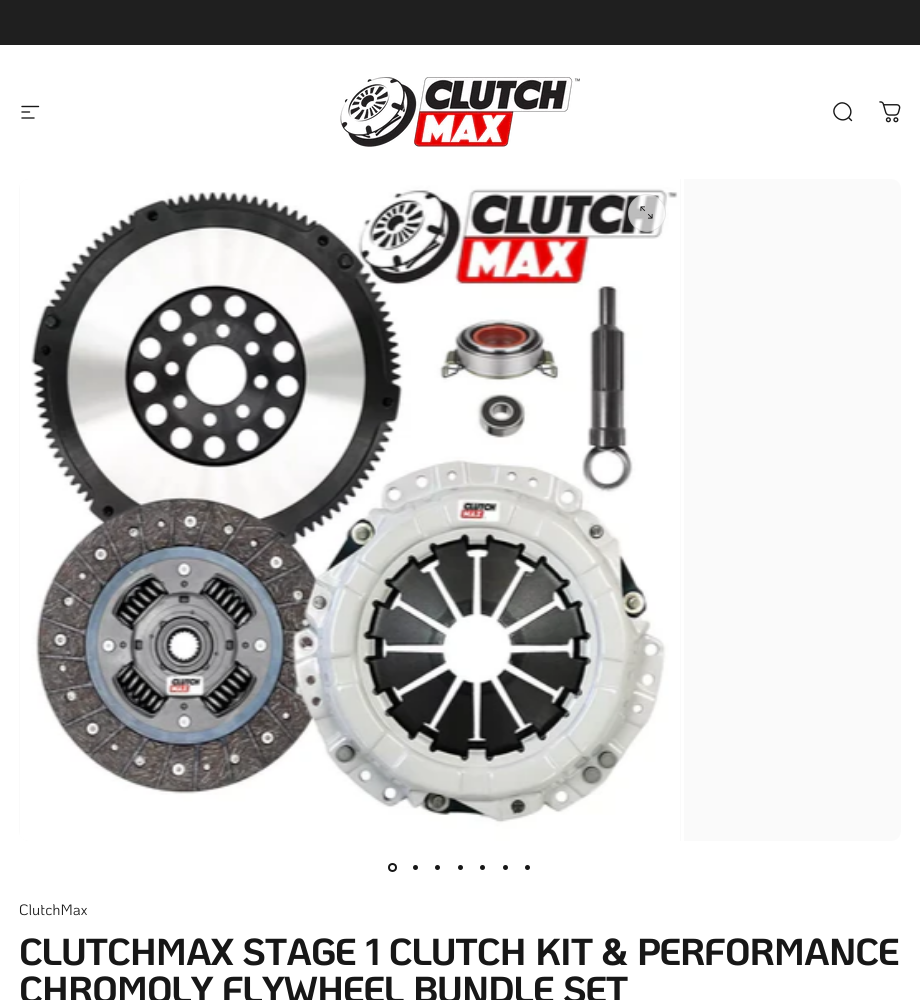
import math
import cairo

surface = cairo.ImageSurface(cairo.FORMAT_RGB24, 920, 1000)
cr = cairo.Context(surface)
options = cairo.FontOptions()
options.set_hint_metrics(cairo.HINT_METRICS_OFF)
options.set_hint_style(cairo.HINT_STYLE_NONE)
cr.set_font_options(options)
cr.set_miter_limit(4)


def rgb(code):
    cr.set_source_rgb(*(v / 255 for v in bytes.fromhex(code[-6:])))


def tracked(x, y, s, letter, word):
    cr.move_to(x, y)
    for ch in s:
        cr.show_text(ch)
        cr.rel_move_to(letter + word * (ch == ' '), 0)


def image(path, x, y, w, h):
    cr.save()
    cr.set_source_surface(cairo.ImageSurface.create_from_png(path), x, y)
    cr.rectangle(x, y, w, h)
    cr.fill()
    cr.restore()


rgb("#ffffff")
cr.paint()
rgb("#1f1f1f")
cr.rectangle(0, 0, 920, 45)
cr.fill()
cr.new_path()
cr.move_to(22, 106.5)
cr.line_to(38.5, 106.5)
cr.move_to(22, 112)
cr.line_to(29.5, 112)
cr.move_to(22, 118)
cr.line_to(34, 118)
rgb("#171717")
cr.set_line_width(1.4)
cr.set_line_cap(cairo.LINE_CAP_ROUND)
cr.stroke()
image("img/1.png", 340, 77, 240, 70)
cr.new_path()
cr.move_to(851.5, 120.5)
cr.line_to(848.5, 117.5)
cr.move_to(848.5, 117.5)
cr.curve_to(856, 109.5, 844, 97.5, 836.5, 105.5)
cr.curve_to(828.5, 113, 840.5, 125, 848.5, 117.5)
cr.close_path()
cr.stroke()
image("img/2.png", 879, 101, 22, 22)
rgb("#fafafa")
cr.new_path()
cr.move_to(29, 179)
cr.line_to(681, 179)
cr.line_to(681, 841)
cr.line_to(29, 841)
cr.curve_to(23.5, 841, 19, 836.5, 19, 831)
cr.line_to(19, 189)
cr.curve_to(19, 183.5, 23.5, 179, 29, 179)
cr.close_path()
cr.fill()
image("img/3.png", 20, 179, 660, 662)
cr.set_source_rgba(1, 1, 1, 0.7)
cr.arc(647, 213, 19, 0, 2 * math.pi)
cr.fill()
cr.arc(647, 213, 18.5, 0, 2 * math.pi)
cr.set_source_rgba(0.09, 0.09, 0.09, 0.1)
cr.set_line_width(1)
cr.set_line_cap(cairo.LINE_CAP_BUTT)
cr.stroke()
image("img/4.png", 640, 206, 13, 13)
rgb("#fafafa")
cr.new_path()
cr.move_to(684, 179)
cr.line_to(891, 179)
cr.curve_to(896.5, 179, 901, 183.5, 901, 189)
cr.line_to(901, 831)
cr.curve_to(901, 836.5, 896.5, 841, 891, 841)
cr.line_to(684, 841)
cr.close_path()
cr.fill()
cr.arc(392.5, 867.5, 3.5, 0, 2 * math.pi)
rgb("#171717")
cr.set_line_width(2)
cr.stroke()
cr.arc(415.5, 867.5, 2.5, 0, 2 * math.pi)
cr.fill()
cr.arc(437.5, 867.5, 2.5, 0, 2 * math.pi)
cr.fill()
cr.arc(460.5, 867.5, 2.5, 0, 2 * math.pi)
cr.fill()
cr.arc(482.5, 867.5, 2.5, 0, 2 * math.pi)
cr.fill()
cr.arc(505.5, 867.5, 2.5, 0, 2 * math.pi)
cr.fill()
cr.arc(527.5, 867.5, 2.5, 0, 2 * math.pi)
cr.fill()
cr.select_font_face("KoHo")
cr.set_font_size(15)
cr.move_to(19, 915)
cr.show_text("ClutchMax")
cr.select_font_face("KoHo", cairo.FONT_SLANT_NORMAL, cairo.FONT_WEIGHT_BOLD)
cr.set_font_size(37.5)
tracked(19, 965, "CLUTCHMAX STAGE 1 CLUTCH KIT & PERFORMANCE", -1.1, 0)
tracked(19, 1003, "CHROMOLY FLYWHEEL BUNDLE SET", -1.1, 0)
surface.write_to_png("page.png")
